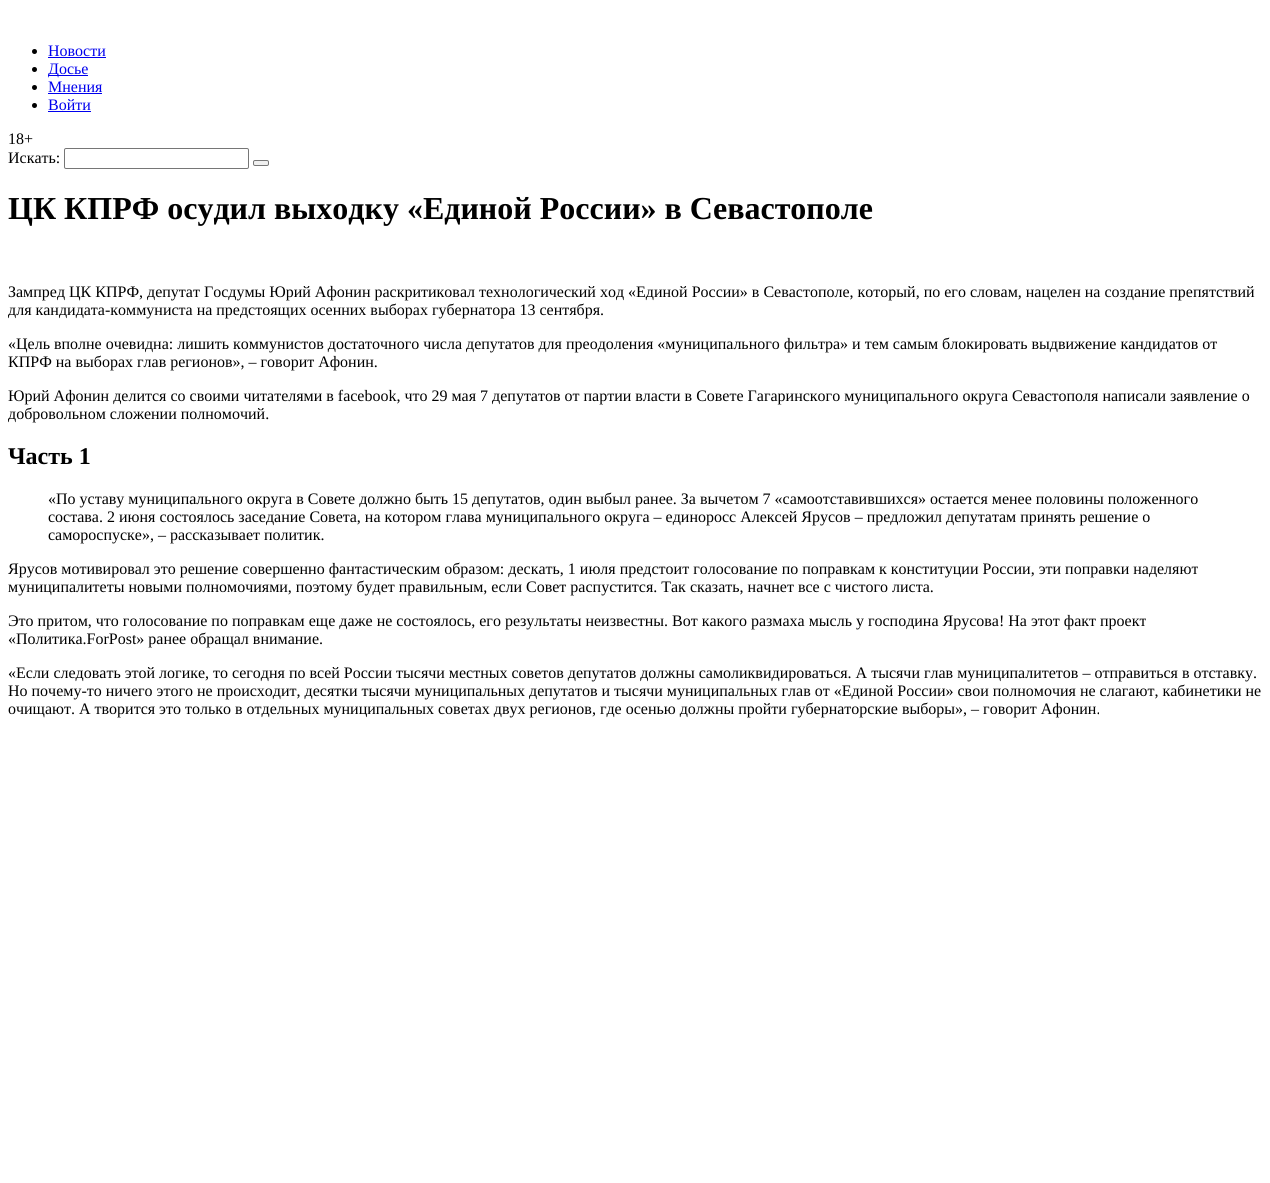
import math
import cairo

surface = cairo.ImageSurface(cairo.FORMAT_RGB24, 1270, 1183)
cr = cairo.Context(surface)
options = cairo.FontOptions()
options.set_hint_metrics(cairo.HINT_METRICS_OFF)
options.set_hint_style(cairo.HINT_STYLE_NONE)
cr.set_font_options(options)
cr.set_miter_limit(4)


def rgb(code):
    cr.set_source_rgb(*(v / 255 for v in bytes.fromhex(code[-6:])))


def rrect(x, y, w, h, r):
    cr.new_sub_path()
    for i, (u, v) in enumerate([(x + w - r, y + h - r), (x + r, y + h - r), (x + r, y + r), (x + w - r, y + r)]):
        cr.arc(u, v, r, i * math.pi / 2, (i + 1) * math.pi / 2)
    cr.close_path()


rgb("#ffffff")
cr.paint()
rgb("#000000")
cr.arc(34.5, 51.5, 2.5, 0, 2 * math.pi)
cr.fill()
rgb("#0000ee")
cr.rectangle(48, 57, 58, 1)
cr.fill()
rgb("#000000")
cr.arc(34.5, 69.5, 2.5, 0, 2 * math.pi)
cr.fill()
rgb("#0000ee")
cr.rectangle(48, 75, 40, 1)
cr.fill()
rgb("#000000")
cr.arc(34.5, 87.5, 2.5, 0, 2 * math.pi)
cr.fill()
rgb("#0000ee")
cr.rectangle(48, 93, 54, 1)
cr.fill()
rgb("#000000")
cr.arc(34.5, 105.5, 2.5, 0, 2 * math.pi)
cr.fill()
rgb("#0000ee")
cr.rectangle(48, 111, 43, 1)
cr.fill()
rrect(64.5, 148.5, 184, 20, 1.5)
rgb("#767676")
cr.set_line_width(1)
cr.stroke()
rgb("#efefef")
rrect(253.5, 160.5, 15, 5, 1.5)
cr.fill_preserve()
rgb("#767676")
cr.stroke()
cr.select_font_face("Liberation Serif")
cr.set_font_size(16)
rgb("#0000ee")
for x, y, s in [
    (48, 56, "Новости"),
    (48, 74, "Досье"),
    (48, 92, "Мнения"),
    (48, 110, "Войти"),
]:
    cr.move_to(x, y)
    cr.show_text(s)
rgb("#000000")
cr.move_to(8, 144)
cr.show_text("18+")
cr.move_to(8, 163)
cr.show_text("Искать:")
cr.select_font_face("Liberation Serif", cairo.FONT_SLANT_NORMAL, cairo.FONT_WEIGHT_BOLD)
cr.set_font_size(32)
cr.move_to(8, 219)
cr.show_text("ЦК КПРФ осудил выходку «Единой России» в Севастополе")
cr.select_font_face("Liberation Serif")
cr.set_font_size(16)
for x, y, s in [
    (8, 297, "Зампред ЦК КПРФ, депутат Госдумы Юрий Афонин раскритиковал технологический ход «Единой России» в Севастополе, который, по его словам, нацелен на создание препятствий"),
    (8, 315, "для кандидата-коммуниста на предстоящих осенних выборах губернатора 13 сентября."),
    (8, 349, "«Цель вполне очевидна: лишить коммунистов достаточного числа депутатов для преодоления «муниципального фильтра» и тем самым блокировать выдвижение кандидатов от"),
    (8, 367, "КПРФ на выборах глав регионов», – говорит Афонин."),
    (8, 401, "Юрий Афонин делится со своими читателями в facebook, что 29 мая 7 депутатов от партии власти в Совете Гагаринского муниципального округа Севастополя написали заявление о"),
    (8, 419, "добровольном сложении полномочий."),
]:
    cr.move_to(x, y)
    cr.show_text(s)
cr.select_font_face("Liberation Serif", cairo.FONT_SLANT_NORMAL, cairo.FONT_WEIGHT_BOLD)
cr.set_font_size(24)
cr.move_to(8, 464)
cr.show_text("Часть 1")
cr.select_font_face("Liberation Serif")
cr.set_font_size(16)
for x, y, s in [
    (48, 504, "«По уставу муниципального округа в Совете должно быть 15 депутатов, один выбыл ранее. За вычетом 7 «самоотставившихся» остается менее половины положенного"),
    (48, 522, "состава. 2 июня состоялось заседание Совета, на котором глава муниципального округа – единоросс Алексей Ярусов – предложил депутатам принять решение о"),
    (48, 540, "самороспуске», – рассказывает политик."),
    (8, 574, "Ярусов мотивировал это решение совершенно фантастическим образом: дескать, 1 июля предстоит голосование по поправкам к конституции России, эти поправки наделяют"),
    (8, 592, "муниципалитеты новыми полномочиями, поэтому будет правильным, если Совет распустится. Так сказать, начнет все с чистого листа."),
    (8, 626, "Это притом, что голосование по поправкам еще даже не состоялось, его результаты неизвестны. Вот какого размаха мысль у господина Ярусова! На этот факт проект"),
    (8, 644, "«Политика.ForPost» ранее обращал внимание."),
    (8, 678, "«Если следовать этой логике, то сегодня по всей России тысячи местных советов депутатов должны самоликвидироваться. А тысячи глав муниципалитетов – отправиться в отставку."),
    (8, 696, "Но почему-то ничего этого не происходит, десятки тысячи муниципальных депутатов и тысячи муниципальных глав от «Единой России» свои полномочия не слагают, кабинетики не"),
    (8, 714, "очищают. А творится это только в отдельных муниципальных советах двух регионов, где осенью должны пройти губернаторские выборы», – говорит Афонин."),
]:
    cr.move_to(x, y)
    cr.show_text(s)
surface.write_to_png("page.png")
